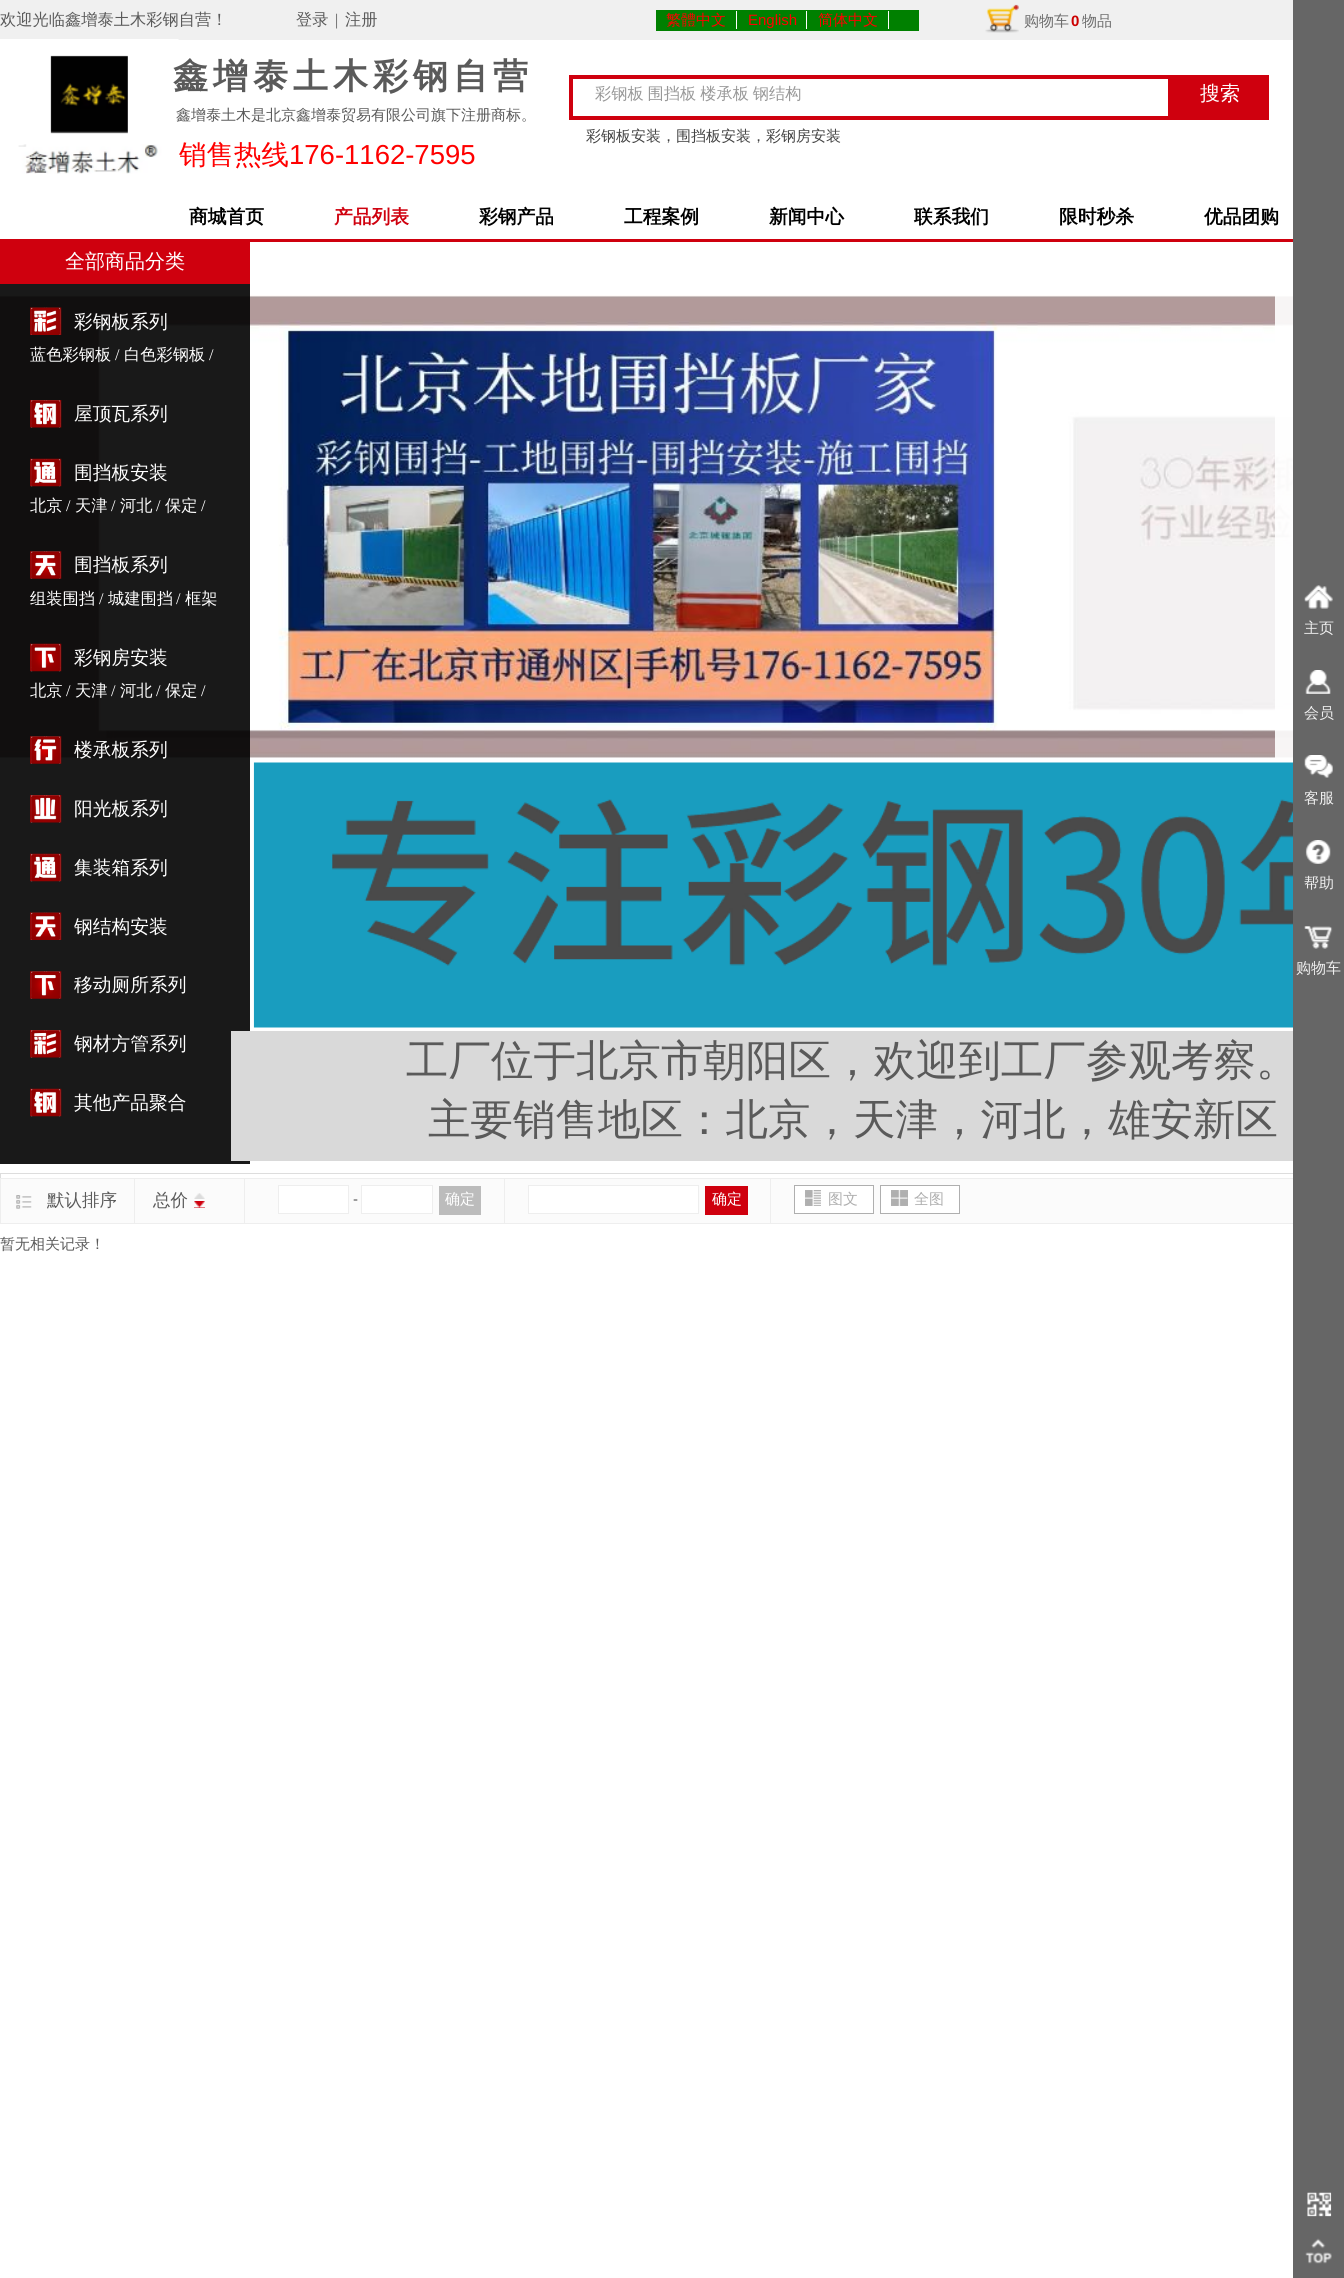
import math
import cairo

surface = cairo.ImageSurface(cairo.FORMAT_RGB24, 1344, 2278)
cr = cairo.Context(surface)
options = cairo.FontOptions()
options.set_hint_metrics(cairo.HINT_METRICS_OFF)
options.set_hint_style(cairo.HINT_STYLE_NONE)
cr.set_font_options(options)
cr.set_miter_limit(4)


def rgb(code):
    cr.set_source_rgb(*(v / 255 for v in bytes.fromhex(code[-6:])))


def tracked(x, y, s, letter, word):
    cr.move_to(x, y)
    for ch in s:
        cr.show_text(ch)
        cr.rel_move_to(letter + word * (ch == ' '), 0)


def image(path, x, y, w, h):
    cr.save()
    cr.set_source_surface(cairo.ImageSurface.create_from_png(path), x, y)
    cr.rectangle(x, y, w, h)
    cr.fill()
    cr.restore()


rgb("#ffffff")
cr.paint()
rgb("#f0f0f0")
cr.rectangle(0, 0, 1293, 40)
cr.fill()
image("img/1.png", 985, 4, 34, 29)
for x, y, w, h, color in [
    (656, 10, 263, 21, "#008000"),
    (736, 11, 1, 18, "#ffffff"),
    (806, 11, 1, 18, "#ffffff"),
    (888, 11, 1, 18, "#ffffff"),
]:
    rgb(color)
    cr.rectangle(x, y, w, h)
    cr.fill()
image("img/2.png", 0, 39, 179, 135)
cr.rectangle(571, 77, 696, 41)
rgb("#cf000e")
cr.set_line_width(4)
cr.stroke()
for x, y, w, h, color in [
    (1168, 79, 97, 37, "#cf000e"),
    (250, 239, 1043, 3, "#cf000e"),
    (0, 239, 250, 45, "#cf000e"),
]:
    rgb(color)
    cr.rectangle(x, y, w, h)
    cr.fill()
image("img/3.png", 0, 295, 1293, 463)
cr.set_source_rgba(0, 0, 0, 0.9)
cr.rectangle(0, 284, 250, 880)
cr.fill()
image("img/4.png", 30, 307, 32, 28)
image("img/5.png", 30, 400, 32, 28)
image("img/6.png", 30, 458, 32, 29)
image("img/7.png", 30, 551, 32, 28)
image("img/8.png", 30, 643, 32, 29)
image("img/9.png", 30, 736, 32, 28)
image("img/10.png", 30, 795, 32, 28)
image("img/11.png", 30, 853, 32, 29)
image("img/12.png", 30, 912, 32, 28)
image("img/13.png", 30, 971, 32, 28)
image("img/14.png", 30, 1030, 32, 28)
image("img/15.png", 30, 1088, 32, 29)
cr.set_source_rgba(1, 1, 1, 0.9)
cr.rectangle(1275, 295, 18, 463)
cr.fill()
image("img/16.png", 253, 762, 1040, 266)
rgb("#d9d9d9")
cr.rectangle(231, 1031, 1062, 130)
cr.fill()
cr.rectangle(0.5, 1173.5, 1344, 49)
rgb("#dddddd")
cr.set_line_width(1)
cr.stroke()
rgb("#fbfbfb")
cr.rectangle(1, 1179, 1292, 44)
cr.fill()
cr.rectangle(0.5, 1178.5, 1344, 45)
rgb("#eeeeee")
cr.stroke()
image("img/17.png", 16, 1195, 16, 14)
for x, y, w, h, color in [
    (134, 1179, 1, 44, "#eeeeee"),
    (244, 1179, 1, 44, "#eeeeee"),
    (194, 1193, 11, 6, "#dcdcdc"),
]:
    rgb(color)
    cr.rectangle(x, y, w, h)
    cr.fill()
image("img/18.png", 194, 1193, 11, 6)
rgb("#cf000e")
cr.rectangle(194, 1201, 11, 7)
cr.fill()
image("img/19.png", 194, 1201, 11, 7)
rgb("#ffffff")
cr.rectangle(278.5, 1185.5, 70, 28)
cr.fill_preserve()
rgb("#eeeeee")
cr.stroke()
rgb("#ffffff")
cr.rectangle(361.5, 1185.5, 71, 28)
cr.fill_preserve()
rgb("#eeeeee")
cr.stroke()
cr.rectangle(504, 1179, 1, 44)
cr.fill()
rgb("#bcbcbc")
cr.rectangle(439, 1186, 42, 29)
cr.fill()
rgb("#ffffff")
cr.rectangle(528.5, 1185.5, 170, 28)
cr.fill_preserve()
rgb("#eeeeee")
cr.stroke()
cr.rectangle(770, 1179, 1, 44)
cr.fill()
rgb("#cf000e")
cr.rectangle(705, 1186, 43, 29)
cr.fill()
rgb("#ffffff")
cr.rectangle(794.5, 1185.5, 79, 28)
cr.fill_preserve()
rgb("#afafaf")
cr.stroke()
cr.rectangle(805, 1190, 16, 16)
cr.fill()
image("img/20.png", 805, 1190, 16, 16)
rgb("#ffffff")
cr.rectangle(880.5, 1185.5, 79, 28)
cr.fill_preserve()
rgb("#afafaf")
cr.stroke()
cr.rectangle(891, 1190, 17, 16)
cr.fill()
image("img/21.png", 891, 1190, 17, 16)
rgb("#666666")
cr.rectangle(1293, 0, 51, 2278)
cr.fill()
image("img/22.png", 1304, 585, 29, 24)
image("img/23.png", 1305, 670, 26, 24)
image("img/24.png", 1304, 755, 29, 23)
image("img/25.png", 1305, 840, 26, 24)
image("img/26.png", 1304, 926, 29, 23)
image("img/27.png", 1307, 2192, 25, 25)
image("img/28.png", 1305, 2238, 27, 26)
cr.select_font_face("WenQuanYi Zen Hei Medium")
cr.set_font_size(16.25)
rgb("#5a5a5a")
cr.move_to(0, 25)
cr.show_text("欢迎光临鑫增泰土木彩钢自营！")
cr.move_to(296, 25)
cr.show_text("登录")
cr.select_font_face("Liberation Serif")
cr.move_to(335, 25)
cr.show_text("|")
cr.select_font_face("WenQuanYi Zen Hei Medium")
cr.move_to(345, 25)
cr.show_text("注册")
cr.set_font_size(15)
rgb("#6d6d6d")
cr.move_to(1024, 26)
cr.show_text("购物车")
cr.select_font_face("Liberation Sans", cairo.FONT_SLANT_NORMAL, cairo.FONT_WEIGHT_BOLD)
rgb("#cc0000")
cr.move_to(1071, 26)
cr.show_text("0")
cr.select_font_face("WenQuanYi Zen Hei Medium")
rgb("#6d6d6d")
cr.move_to(1082, 26)
cr.show_text("物品")
rgb("#ff0000")
cr.move_to(666, 25)
cr.show_text("繁體中文")
cr.select_font_face("Liberation Sans")
cr.move_to(748, 25)
cr.show_text("English")
cr.select_font_face("WenQuanYi Zen Hei Medium")
cr.move_to(818, 25)
cr.show_text("简体中文")
cr.select_font_face("WenQuanYi Zen Hei", cairo.FONT_SLANT_NORMAL, cairo.FONT_WEIGHT_BOLD)
cr.set_font_size(35)
rgb("#5a5a5a")
tracked(173, 88, "鑫增泰土木彩钢自营", 5, 0)
cr.select_font_face("WenQuanYi Zen Hei Medium")
cr.set_font_size(15)
cr.move_to(176, 120)
cr.show_text("鑫增泰土木是北京鑫增泰贸易有限公司旗下注册商标。")
cr.set_font_size(16.25)
rgb("#999999")
tracked(595, 99, "彩钢板 围挡板 楼承板 钢结构", 0, -1)
cr.set_font_size(20)
rgb("#ffffff")
cr.move_to(1200, 100)
cr.show_text("搜索")
cr.set_font_size(15)
rgb("#434343")
cr.move_to(586, 141)
cr.show_text("彩钢板安装，围挡板安装，彩钢房安装")
cr.set_font_size(27.5)
rgb("#ff0000")
cr.move_to(179, 164)
cr.show_text("销售热线")
cr.select_font_face("Liberation Sans")
cr.move_to(289, 164)
cr.show_text("176-1162-7595")
cr.select_font_face("WenQuanYi Zen Hei", cairo.FONT_SLANT_NORMAL, cairo.FONT_WEIGHT_BOLD)
cr.set_font_size(18.75)
rgb("#000000")
cr.move_to(189, 223)
cr.show_text("商城首页")
rgb("#cf000e")
cr.move_to(334, 223)
cr.show_text("产品列表")
rgb("#000000")
for x, y, s in [
    (479, 223, "彩钢产品"),
    (624, 223, "工程案例"),
    (769, 223, "新闻中心"),
    (914, 223, "联系我们"),
    (1059, 223, "限时秒杀"),
    (1204, 223, "优品团购"),
]:
    cr.move_to(x, y)
    cr.show_text(s)
cr.select_font_face("WenQuanYi Zen Hei Medium")
cr.set_font_size(20)
rgb("#ffffff")
cr.move_to(65, 268)
cr.show_text("全部商品分类")
cr.set_font_size(18.75)
cr.move_to(74, 328)
cr.show_text("彩钢板系列")
cr.set_font_size(16.25)
cr.move_to(30, 360)
cr.show_text("蓝色彩钢板")
cr.select_font_face("Liberation Serif")
cr.move_to(115, 360)
cr.show_text("/")
cr.select_font_face("WenQuanYi Zen Hei Medium")
cr.move_to(124, 360)
cr.show_text("白色彩钢板")
cr.select_font_face("Liberation Serif")
cr.move_to(209, 360)
cr.show_text("/")
cr.select_font_face("WenQuanYi Zen Hei Medium")
cr.set_font_size(18.75)
cr.move_to(74, 420)
cr.show_text("屋顶瓦系列")
cr.move_to(74, 479)
cr.show_text("围挡板安装")
cr.set_font_size(16.25)
cr.move_to(30, 511)
cr.show_text("北京")
cr.select_font_face("Liberation Serif")
cr.move_to(66, 511)
cr.show_text("/")
cr.select_font_face("WenQuanYi Zen Hei Medium")
cr.move_to(75, 511)
cr.show_text("天津")
cr.select_font_face("Liberation Serif")
cr.move_to(111, 511)
cr.show_text("/")
cr.select_font_face("WenQuanYi Zen Hei Medium")
cr.move_to(120, 511)
cr.show_text("河北")
cr.select_font_face("Liberation Serif")
cr.move_to(156, 511)
cr.show_text("/")
cr.select_font_face("WenQuanYi Zen Hei Medium")
cr.move_to(165, 511)
cr.show_text("保定")
cr.select_font_face("Liberation Serif")
cr.move_to(201, 511)
cr.show_text("/")
cr.select_font_face("WenQuanYi Zen Hei Medium")
cr.set_font_size(18.75)
cr.move_to(74, 571)
cr.show_text("围挡板系列")
cr.set_font_size(16.25)
cr.move_to(30, 604)
cr.show_text("组装围挡")
cr.select_font_face("Liberation Serif")
cr.move_to(99, 604)
cr.show_text("/")
cr.select_font_face("WenQuanYi Zen Hei Medium")
cr.move_to(108, 604)
cr.show_text("城建围挡")
cr.select_font_face("Liberation Serif")
cr.move_to(176, 604)
cr.show_text("/")
cr.select_font_face("WenQuanYi Zen Hei Medium")
cr.move_to(185, 604)
cr.show_text("框架")
cr.set_font_size(18.75)
cr.move_to(74, 664)
cr.show_text("彩钢房安装")
cr.set_font_size(16.25)
cr.move_to(30, 696)
cr.show_text("北京")
cr.select_font_face("Liberation Serif")
cr.move_to(66, 696)
cr.show_text("/")
cr.select_font_face("WenQuanYi Zen Hei Medium")
cr.move_to(75, 696)
cr.show_text("天津")
cr.select_font_face("Liberation Serif")
cr.move_to(111, 696)
cr.show_text("/")
cr.select_font_face("WenQuanYi Zen Hei Medium")
cr.move_to(120, 696)
cr.show_text("河北")
cr.select_font_face("Liberation Serif")
cr.move_to(156, 696)
cr.show_text("/")
cr.select_font_face("WenQuanYi Zen Hei Medium")
cr.move_to(165, 696)
cr.show_text("保定")
cr.select_font_face("Liberation Serif")
cr.move_to(201, 696)
cr.show_text("/")
cr.select_font_face("WenQuanYi Zen Hei Medium")
cr.set_font_size(18.75)
for x, y, s in [
    (74, 756, "楼承板系列"),
    (74, 815, "阳光板系列"),
    (74, 874, "集装箱系列"),
    (74, 933, "钢结构安装"),
    (74, 991, "移动厕所系列"),
    (74, 1050, "钢材方管系列"),
    (74, 1109, "其他产品聚合"),
]:
    cr.move_to(x, y)
    cr.show_text(s)
cr.set_font_size(42.5)
rgb("#5a5a5a")
cr.move_to(406, 1075)
cr.show_text("工厂位于北京市朝阳区，欢迎到工厂参观考察。")
cr.move_to(428, 1134)
cr.show_text("主要销售地区：北京，天津，河北，雄安新区")
cr.set_font_size(17.5)
cr.move_to(47, 1206)
cr.show_text("默认排序")
cr.move_to(153, 1206)
cr.show_text("总价")
cr.select_font_face("Liberation Sans")
cr.set_font_size(15)
cr.move_to(353, 1204)
cr.show_text("-")
cr.select_font_face("WenQuanYi Zen Hei Medium")
rgb("#ffffff")
cr.move_to(445, 1204)
cr.show_text("确定")
cr.move_to(712, 1204)
cr.show_text("确定")
rgb("#afafaf")
cr.move_to(828, 1204)
cr.show_text("图文")
cr.move_to(914, 1204)
cr.show_text("全图")
rgb("#5a5a5a")
cr.move_to(0, 1249)
cr.show_text("暂无相关记录！")
rgb("#efefef")
for x, y, s in [
    (1304, 633, "主页"),
    (1304, 718, "会员"),
    (1304, 803, "客服"),
    (1304, 888, "帮助"),
    (1296, 973, "购物车"),
]:
    cr.move_to(x, y)
    cr.show_text(s)
surface.write_to_png("page.png")
